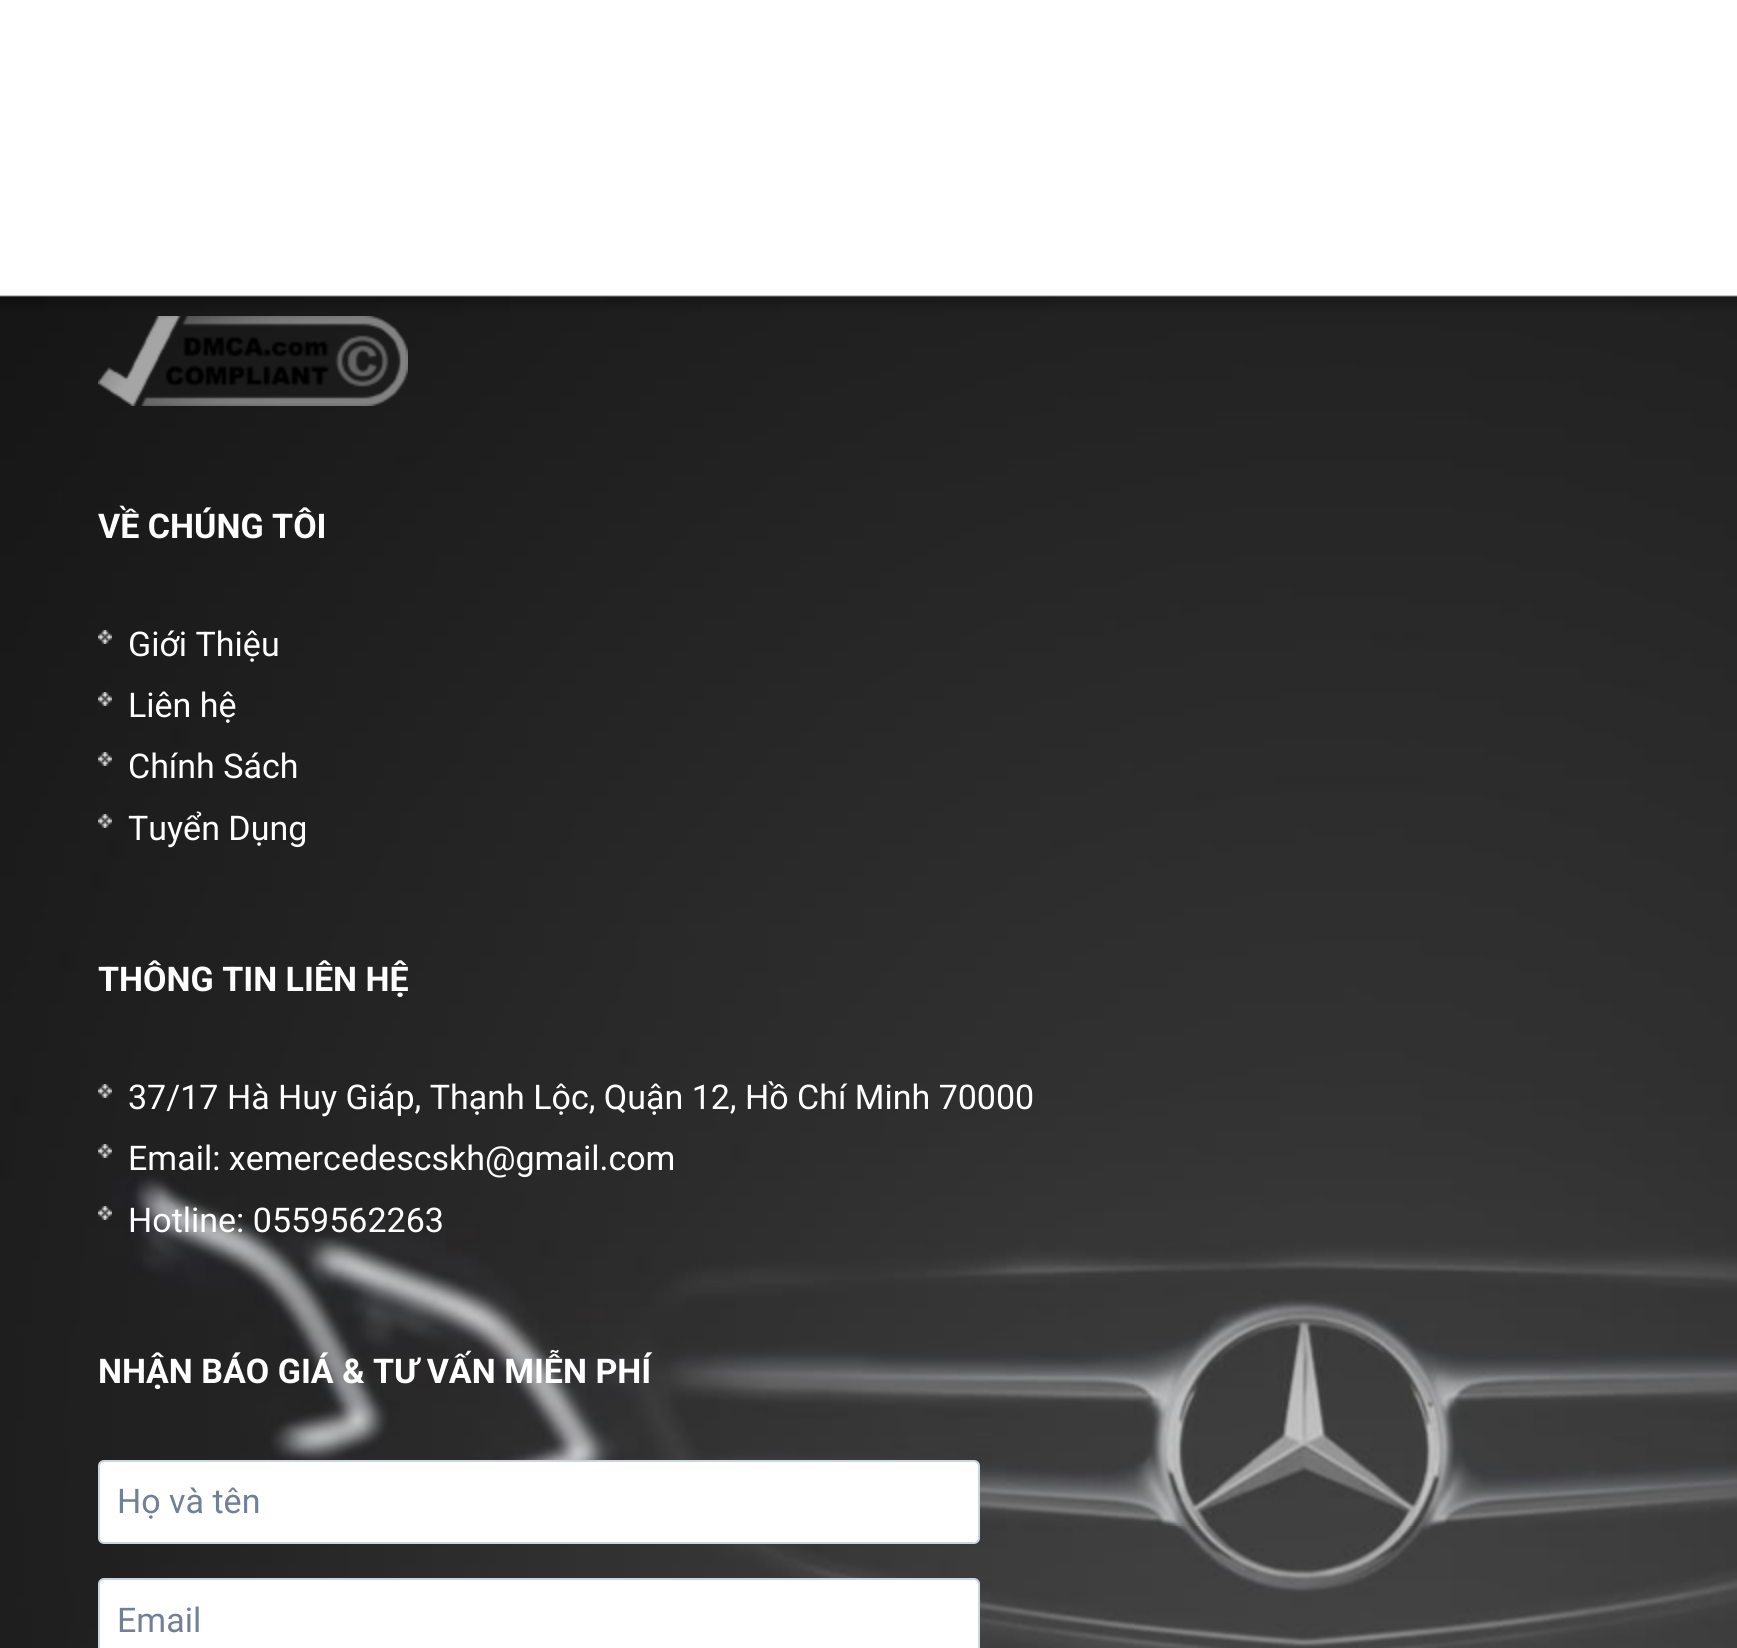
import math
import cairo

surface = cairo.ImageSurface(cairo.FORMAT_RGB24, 1737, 1648)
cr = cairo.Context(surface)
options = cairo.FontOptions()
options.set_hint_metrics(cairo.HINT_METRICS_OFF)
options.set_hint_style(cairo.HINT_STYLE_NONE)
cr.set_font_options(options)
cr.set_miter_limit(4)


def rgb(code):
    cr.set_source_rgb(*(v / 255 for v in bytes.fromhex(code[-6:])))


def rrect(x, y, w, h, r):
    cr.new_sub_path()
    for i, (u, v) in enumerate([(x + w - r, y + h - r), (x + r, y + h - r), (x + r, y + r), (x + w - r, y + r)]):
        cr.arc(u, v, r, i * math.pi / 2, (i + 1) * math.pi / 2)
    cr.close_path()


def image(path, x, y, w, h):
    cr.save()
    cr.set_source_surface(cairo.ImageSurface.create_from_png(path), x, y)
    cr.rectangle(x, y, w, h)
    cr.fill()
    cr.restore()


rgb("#ffffff")
cr.paint()
image("img/1.png", 0, 295, 1737, 1353)
image("img/2.png", 98, 316, 310, 90)
image("img/3.png", 98, 630, 14, 14)
image("img/4.png", 98, 692, 14, 14)
image("img/5.png", 98, 752, 14, 14)
image("img/6.png", 98, 814, 14, 14)
image("img/7.png", 98, 1084, 14, 14)
image("img/8.png", 98, 1144, 14, 14)
image("img/9.png", 98, 1206, 14, 14)
rgb("#ffffff")
rrect(99, 1461, 880, 82, 5)
cr.fill_preserve()
rgb("#cbd5e0")
cr.stroke()
rgb("#ffffff")
rrect(99, 1579, 880, 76, 5)
cr.fill_preserve()
rgb("#cbd5e0")
cr.stroke()
cr.select_font_face("Roboto", cairo.FONT_SLANT_NORMAL, cairo.FONT_WEIGHT_BOLD)
cr.set_font_size(34)
rgb("#ffffff")
cr.move_to(98, 538)
cr.show_text("VỀ CHÚNG TÔI")
cr.select_font_face("Roboto")
for x, y, s in [
    (128, 656, "Giới Thiệu"),
    (128, 717, "Liên hệ"),
    (128, 778, "Chính Sách"),
    (128, 840, "Tuyển Dụng"),
]:
    cr.move_to(x, y)
    cr.show_text(s)
cr.select_font_face("Roboto", cairo.FONT_SLANT_NORMAL, cairo.FONT_WEIGHT_BOLD)
cr.move_to(98, 991)
cr.show_text("THÔNG TIN LIÊN HỆ")
cr.select_font_face("Roboto")
for x, y, s in [
    (128, 1109, "37/17 Hà Huy Giáp, Thạnh Lộc, Quận 12, Hồ Chí Minh 70000"),
    (128, 1170, "Email: xemercedescskh@gmail.com"),
    (128, 1232, "Hotline: 0559562263"),
]:
    cr.move_to(x, y)
    cr.show_text(s)
cr.select_font_face("Roboto", cairo.FONT_SLANT_NORMAL, cairo.FONT_WEIGHT_BOLD)
cr.move_to(98, 1383)
cr.show_text("NHẬN BÁO GIÁ & TƯ VẤN MIỄN PHÍ")
cr.select_font_face("Roboto")
rgb("#718096")
cr.move_to(117, 1513)
cr.show_text("Họ và tên")
cr.move_to(117, 1632)
cr.show_text("Email")
surface.write_to_png("page.png")
